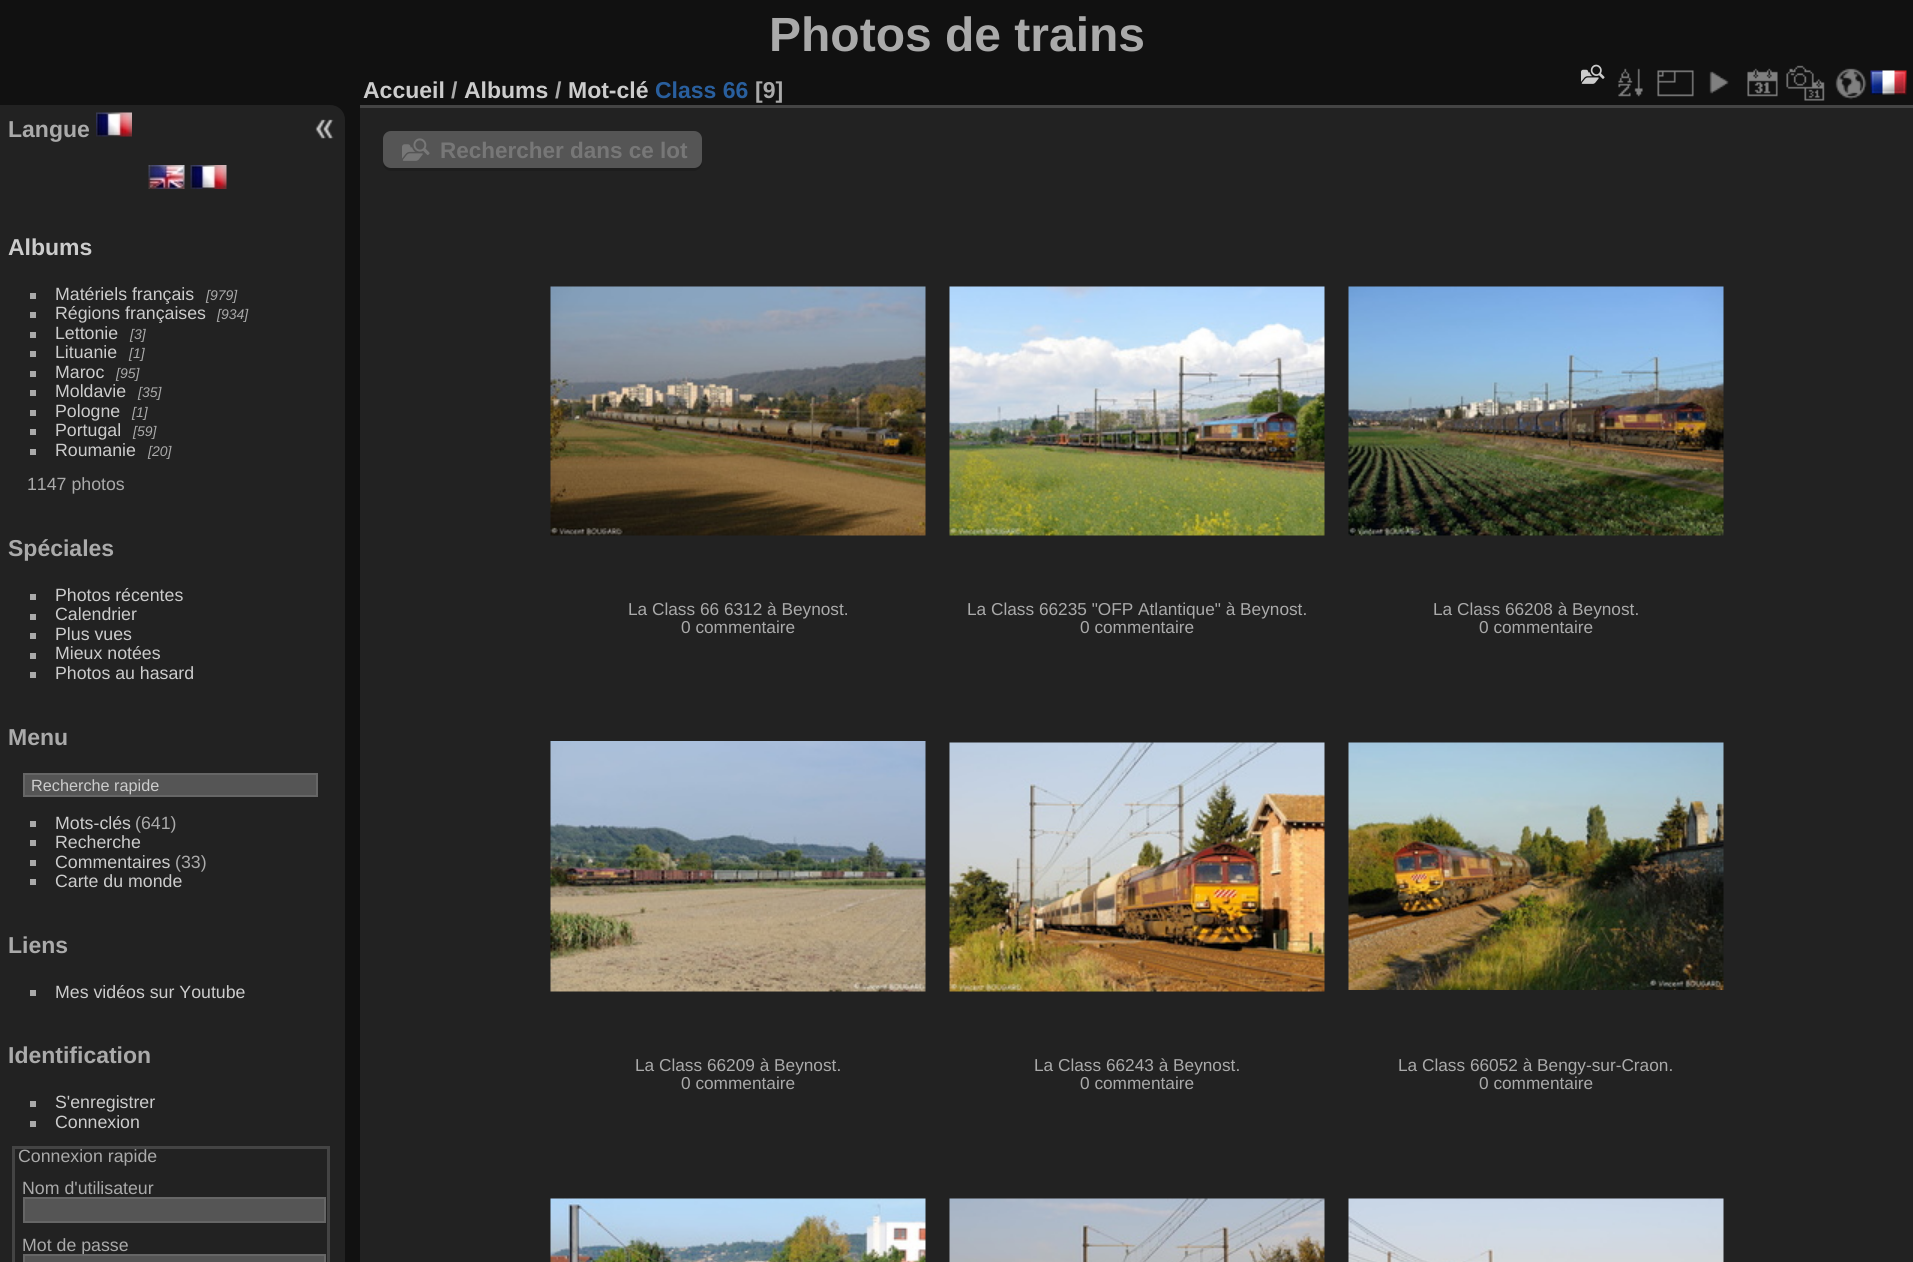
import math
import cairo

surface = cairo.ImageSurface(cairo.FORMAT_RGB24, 1913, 1262)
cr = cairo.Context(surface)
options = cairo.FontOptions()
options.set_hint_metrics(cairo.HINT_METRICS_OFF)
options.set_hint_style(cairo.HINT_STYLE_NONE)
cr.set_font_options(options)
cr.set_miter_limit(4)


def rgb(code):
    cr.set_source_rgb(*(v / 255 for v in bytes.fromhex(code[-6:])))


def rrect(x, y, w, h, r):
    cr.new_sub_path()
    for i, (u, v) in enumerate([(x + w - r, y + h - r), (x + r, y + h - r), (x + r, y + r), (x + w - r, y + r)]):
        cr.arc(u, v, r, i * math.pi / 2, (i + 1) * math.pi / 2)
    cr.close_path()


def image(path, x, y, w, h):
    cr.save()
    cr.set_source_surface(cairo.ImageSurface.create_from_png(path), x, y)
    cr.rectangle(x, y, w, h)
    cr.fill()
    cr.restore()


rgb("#111111")
cr.paint()
rgb("#222222")
cr.new_path()
cr.move_to(0, 105)
cr.line_to(330, 105)
cr.curve_to(338.5, 105, 345, 111.5, 345, 120)
cr.line_to(345, 1262)
cr.curve_to(345, 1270.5, 338.5, 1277, 330, 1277)
cr.line_to(0, 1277)
cr.close_path()
cr.fill()
image("img/1.png", 96, 112, 36, 25)
image("img/2.png", 148, 165, 37, 24)
image("img/3.png", 190, 165, 37, 24)
for x, y, w, h, color in [
    (30, 293, 6, 6, "#aaaaaa"),
    (30, 312, 6, 6, "#aaaaaa"),
    (30, 332, 6, 6, "#aaaaaa"),
    (30, 351, 6, 6, "#aaaaaa"),
    (30, 371, 6, 6, "#aaaaaa"),
    (30, 390, 6, 6, "#aaaaaa"),
    (30, 410, 6, 6, "#aaaaaa"),
    (30, 429, 6, 6, "#aaaaaa"),
    (30, 449, 6, 6, "#aaaaaa"),
    (30, 594, 6, 6, "#aaaaaa"),
    (30, 614, 6, 6, "#aaaaaa"),
    (30, 633, 6, 6, "#aaaaaa"),
    (30, 653, 6, 6, "#aaaaaa"),
    (30, 672, 6, 6, "#aaaaaa"),
]:
    rgb(color)
    cr.rectangle(x, y, w, h)
    cr.fill()
rgb("#555555")
cr.rectangle(24, 774, 293, 22)
cr.fill_preserve()
rgb("#666666")
cr.stroke()
for x, y, w, h, color in [
    (30, 821, 6, 6, "#aaaaaa"),
    (30, 840, 6, 6, "#aaaaaa"),
    (30, 860, 6, 6, "#aaaaaa"),
    (30, 879, 6, 6, "#aaaaaa"),
    (30, 990, 6, 6, "#aaaaaa"),
    (30, 1101, 6, 6, "#aaaaaa"),
    (30, 1121, 6, 6, "#aaaaaa"),
]:
    rgb(color)
    cr.rectangle(x, y, w, h)
    cr.fill()
cr.rectangle(13.5, 1147.5, 315, 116)
rgb("#444444")
cr.set_line_width(3)
cr.stroke()
rgb("#555555")
cr.rectangle(24, 1198, 301, 24)
cr.fill_preserve()
rgb("#666666")
cr.set_line_width(2)
cr.stroke()
image("img/4.png", 315, 119, 19, 20)
rgb("#222222")
cr.rectangle(360, 108, 1553, 1154)
cr.fill()
rgb("#444444")
cr.rectangle(360, 105, 1553, 3)
cr.fill()
image("img/5.png", 1581, 64, 24, 20)
image("img/6.png", 1618, 68, 25, 29)
image("img/7.png", 1657, 70, 37, 27)
image("img/8.png", 1709, 71, 20, 23)
image("img/9.png", 1747, 68, 31, 29)
image("img/10.png", 1786, 65, 39, 36)
image("img/11.png", 1835, 68, 32, 32)
image("img/12.png", 1870, 70, 37, 25)
rgb("#1d1d1d")
cr.new_path()
cr.move_to(383, 163)
cr.curve_to(383, 168, 387, 171, 391, 171)
cr.line_to(694, 171)
cr.curve_to(698, 171, 702, 167, 702, 163)
cr.line_to(702, 160)
cr.curve_to(702, 165, 699, 168, 694, 168)
cr.line_to(390, 168)
cr.curve_to(387, 168, 384, 166, 383, 163)
cr.close_path()
cr.fill()
rgb("#555555")
rrect(383, 131, 319, 37, 8)
cr.fill()
image("img/13.png", 402, 138, 28, 23)
image("img/14.png", 550, 286, 376, 250)
image("img/15.png", 949, 286, 376, 250)
image("img/16.png", 1348, 286, 376, 250)
image("img/17.png", 550, 741, 376, 251)
image("img/18.png", 949, 742, 376, 250)
image("img/19.png", 1348, 742, 376, 248)
image("img/20.png", 550, 1198, 376, 64)
image("img/21.png", 949, 1198, 376, 64)
image("img/22.png", 1348, 1198, 376, 64)
cr.select_font_face("Liberation Sans", cairo.FONT_SLANT_NORMAL, cairo.FONT_WEIGHT_BOLD)
cr.set_font_size(48)
rgb("#aaaaaa")
cr.move_to(769, 51)
cr.show_text("Photos de trains")
cr.set_font_size(23)
cr.move_to(8, 137)
cr.show_text("Langue")
rgb("#cccccc")
cr.move_to(8, 255)
cr.show_text("Albums")
cr.select_font_face("Liberation Sans")
cr.set_font_size(17.75)
cr.move_to(55, 300)
cr.show_text("Matériels français")
cr.select_font_face("Liberation Sans", cairo.FONT_SLANT_ITALIC)
cr.set_font_size(14)
rgb("#aaaaaa")
cr.move_to(206, 300)
cr.show_text("[979]")
cr.select_font_face("Liberation Sans")
cr.set_font_size(17.75)
rgb("#cccccc")
cr.move_to(55, 319)
cr.show_text("Régions françaises")
cr.select_font_face("Liberation Sans", cairo.FONT_SLANT_ITALIC)
cr.set_font_size(14)
rgb("#aaaaaa")
cr.move_to(217, 319)
cr.show_text("[934]")
cr.select_font_face("Liberation Sans")
cr.set_font_size(17.75)
rgb("#cccccc")
cr.move_to(55, 339)
cr.show_text("Lettonie")
cr.select_font_face("Liberation Sans", cairo.FONT_SLANT_ITALIC)
cr.set_font_size(14)
rgb("#aaaaaa")
cr.move_to(130, 339)
cr.show_text("[3]")
cr.select_font_face("Liberation Sans")
cr.set_font_size(17.75)
rgb("#cccccc")
cr.move_to(55, 358)
cr.show_text("Lituanie")
cr.select_font_face("Liberation Sans", cairo.FONT_SLANT_ITALIC)
cr.set_font_size(14)
rgb("#aaaaaa")
cr.move_to(129, 358)
cr.show_text("[1]")
cr.select_font_face("Liberation Sans")
cr.set_font_size(17.75)
rgb("#cccccc")
cr.move_to(55, 378)
cr.show_text("Maroc")
cr.select_font_face("Liberation Sans", cairo.FONT_SLANT_ITALIC)
cr.set_font_size(14)
rgb("#aaaaaa")
cr.move_to(116, 378)
cr.show_text("[95]")
cr.select_font_face("Liberation Sans")
cr.set_font_size(17.75)
rgb("#cccccc")
cr.move_to(55, 397)
cr.show_text("Moldavie")
cr.select_font_face("Liberation Sans", cairo.FONT_SLANT_ITALIC)
cr.set_font_size(14)
rgb("#aaaaaa")
cr.move_to(138, 397)
cr.show_text("[35]")
cr.select_font_face("Liberation Sans")
cr.set_font_size(17.75)
rgb("#cccccc")
cr.move_to(55, 417)
cr.show_text("Pologne")
cr.select_font_face("Liberation Sans", cairo.FONT_SLANT_ITALIC)
cr.set_font_size(14)
rgb("#aaaaaa")
cr.move_to(132, 417)
cr.show_text("[1]")
cr.select_font_face("Liberation Sans")
cr.set_font_size(17.75)
rgb("#cccccc")
cr.move_to(55, 436)
cr.show_text("Portugal")
cr.select_font_face("Liberation Sans", cairo.FONT_SLANT_ITALIC)
cr.set_font_size(14)
rgb("#aaaaaa")
cr.move_to(133, 436)
cr.show_text("[59]")
cr.select_font_face("Liberation Sans")
cr.set_font_size(17.75)
rgb("#cccccc")
cr.move_to(55, 456)
cr.show_text("Roumanie")
cr.select_font_face("Liberation Sans", cairo.FONT_SLANT_ITALIC)
cr.set_font_size(14)
rgb("#aaaaaa")
cr.move_to(148, 456)
cr.show_text("[20]")
cr.select_font_face("Liberation Sans")
cr.set_font_size(17.75)
cr.move_to(27, 490)
cr.show_text("1147 photos")
cr.select_font_face("Liberation Sans", cairo.FONT_SLANT_NORMAL, cairo.FONT_WEIGHT_BOLD)
cr.set_font_size(23)
cr.move_to(8, 556)
cr.show_text("Spéciales")
cr.select_font_face("Liberation Sans")
cr.set_font_size(17.75)
rgb("#cccccc")
for x, y, s in [
    (55, 601, "Photos récentes"),
    (55, 620, "Calendrier"),
    (55, 640, "Plus vues"),
    (55, 659, "Mieux notées"),
    (55, 679, "Photos au hasard"),
]:
    cr.move_to(x, y)
    cr.show_text(s)
cr.select_font_face("Liberation Sans", cairo.FONT_SLANT_NORMAL, cairo.FONT_WEIGHT_BOLD)
cr.set_font_size(23)
rgb("#aaaaaa")
cr.move_to(8, 745)
cr.show_text("Menu")
cr.select_font_face("Liberation Sans")
cr.set_font_size(16.25)
rgb("#cccccc")
cr.move_to(31, 791)
cr.show_text("Recherche rapide")
cr.set_font_size(17.75)
cr.move_to(55, 829)
cr.show_text("Mots-clés")
rgb("#aaaaaa")
cr.move_to(135, 829)
cr.show_text("(641)")
rgb("#cccccc")
cr.move_to(55, 848)
cr.show_text("Recherche")
cr.move_to(55, 868)
cr.show_text("Commentaires")
rgb("#aaaaaa")
cr.move_to(175, 868)
cr.show_text("(33)")
rgb("#cccccc")
cr.move_to(55, 887)
cr.show_text("Carte du monde")
cr.select_font_face("Liberation Sans", cairo.FONT_SLANT_NORMAL, cairo.FONT_WEIGHT_BOLD)
cr.set_font_size(23)
rgb("#aaaaaa")
cr.move_to(8, 953)
cr.show_text("Liens")
cr.select_font_face("Liberation Sans")
cr.set_font_size(17.75)
rgb("#cccccc")
cr.move_to(55, 998)
cr.show_text("Mes vidéos sur Youtube")
cr.select_font_face("Liberation Sans", cairo.FONT_SLANT_NORMAL, cairo.FONT_WEIGHT_BOLD)
cr.set_font_size(23)
rgb("#aaaaaa")
cr.move_to(8, 1063)
cr.show_text("Identification")
cr.select_font_face("Liberation Sans")
cr.set_font_size(17.75)
rgb("#cccccc")
cr.move_to(55, 1108)
cr.show_text("S'enregistrer")
cr.move_to(55, 1128)
cr.show_text("Connexion")
rgb("#aaaaaa")
for x, y, s in [
    (18, 1162, "Connexion rapide"),
    (22, 1194, "Nom d'utilisateur"),
    (22, 1251, "Mot de passe"),
]:
    cr.move_to(x, y)
    cr.show_text(s)
rgb("#555555")
cr.rectangle(24, 1255, 301, 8)
cr.fill_preserve()
rgb("#666666")
cr.stroke()
cr.select_font_face("Liberation Sans", cairo.FONT_SLANT_NORMAL, cairo.FONT_WEIGHT_BOLD)
cr.set_font_size(23)
rgb("#cccccc")
cr.move_to(363, 98)
cr.show_text("Accueil")
rgb("#aaaaaa")
cr.move_to(451, 98)
cr.show_text("/")
rgb("#cccccc")
cr.move_to(464, 98)
cr.show_text("Albums")
rgb("#aaaaaa")
cr.move_to(555, 98)
cr.show_text("/")
rgb("#cccccc")
cr.move_to(568, 98)
cr.show_text("Mot-clé")
rgb("#295f9e")
cr.move_to(655, 98)
cr.show_text("Class 66")
rgb("#aaaaaa")
cr.move_to(755, 98)
cr.show_text("[9]")
cr.set_font_size(22.5)
rgb("#777777")
cr.move_to(440, 158)
cr.show_text("Rechercher dans ce lot")
cr.select_font_face("Liberation Sans")
cr.set_font_size(17.25)
rgb("#aaaaaa")
for x, y, s in [
    (628, 615, "La Class 66 6312 à Beynost."),
    (681, 633, "0 commentaire"),
    (967, 615, "La Class 66235 \"OFP Atlantique\" à Beynost."),
    (1080, 633, "0 commentaire"),
    (1433, 615, "La Class 66208 à Beynost."),
    (1479, 633, "0 commentaire"),
    (635, 1071, "La Class 66209 à Beynost."),
    (681, 1089, "0 commentaire"),
    (1034, 1071, "La Class 66243 à Beynost."),
    (1080, 1089, "0 commentaire"),
    (1398, 1071, "La Class 66052 à Bengy-sur-Craon."),
    (1479, 1089, "0 commentaire"),
]:
    cr.move_to(x, y)
    cr.show_text(s)
surface.write_to_png("page.png")
